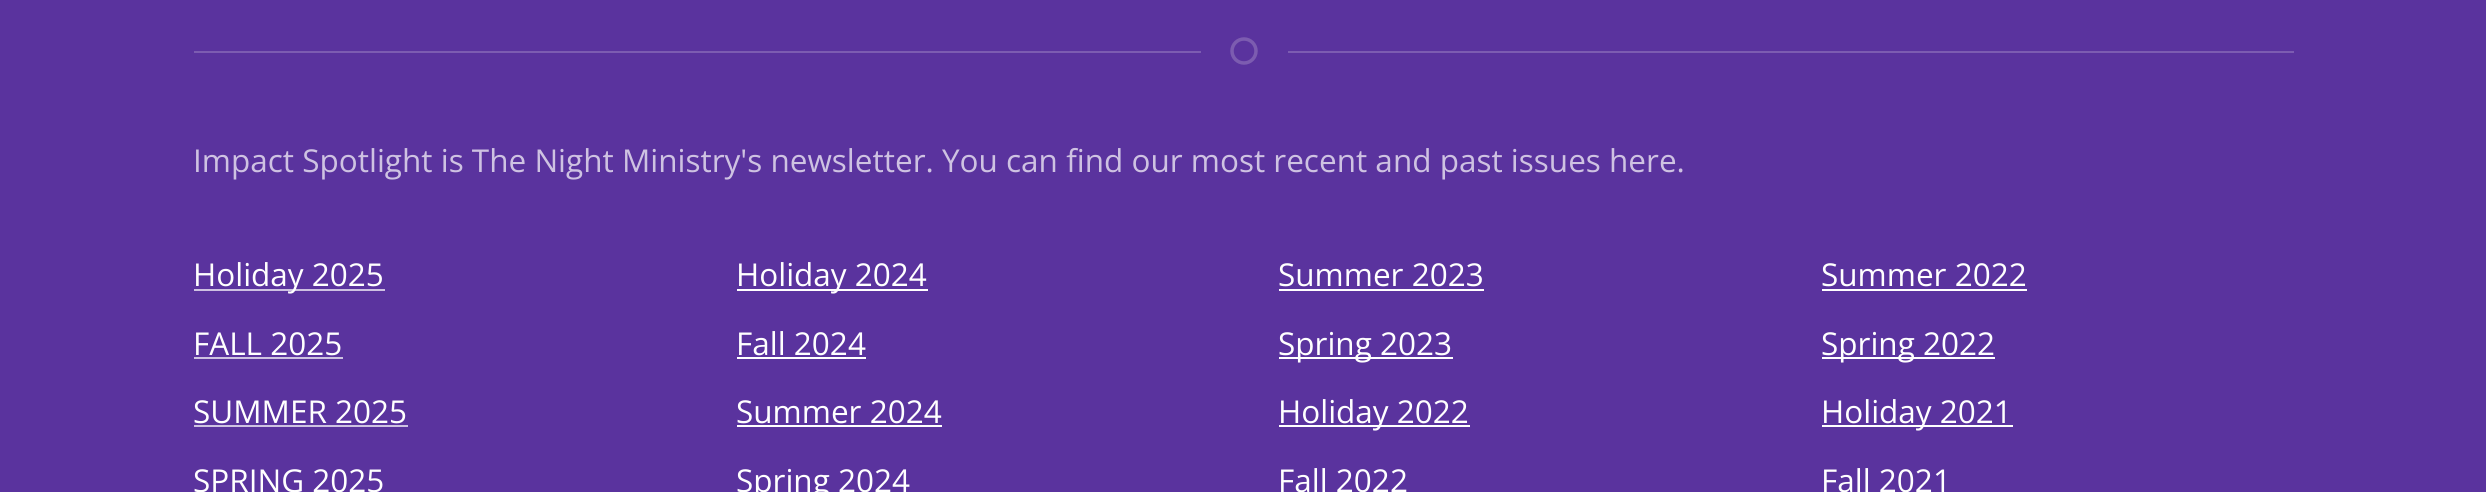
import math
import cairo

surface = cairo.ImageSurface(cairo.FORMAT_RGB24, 2486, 492)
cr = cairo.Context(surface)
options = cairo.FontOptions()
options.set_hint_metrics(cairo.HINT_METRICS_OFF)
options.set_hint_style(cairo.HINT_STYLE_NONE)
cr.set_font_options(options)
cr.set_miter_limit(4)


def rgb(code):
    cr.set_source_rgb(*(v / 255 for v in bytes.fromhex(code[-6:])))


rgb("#5a339e")
cr.paint()
cr.arc(1244, 51, 12, 0, 2 * math.pi)
rgb("#7c5cb0")
cr.set_line_width(3.5)
cr.stroke()
for x, y, w, h, color in [
    (194, 51, 1007, 2, "#7c5cb1"),
    (1288, 51, 1006, 2, "#7c5cb1"),
    (194, 289, 191, 2, "#cec2e2"),
    (194, 357, 149, 2, "#cec2e2"),
    (194, 425, 214, 2, "#cec2e2"),
    (737, 289, 191, 2, "#ffffff"),
    (737, 357, 129, 2, "#ffffff"),
    (737, 425, 205, 2, "#ffffff"),
    (1279, 289, 205, 2, "#ffffff"),
    (1279, 357, 174, 2, "#ffffff"),
    (1279, 425, 191, 2, "#ffffff"),
    (1822, 289, 205, 2, "#ffffff"),
    (1822, 357, 173, 2, "#ffffff"),
    (1822, 425, 191, 2, "#ffffff"),
]:
    rgb(color)
    cr.rectangle(x, y, w, h)
    cr.fill()
cr.select_font_face("Open Sans")
cr.set_font_size(31.5)
rgb("#cec2e2")
cr.move_to(193, 172)
cr.show_text("Impact Spotlight is The Night Ministry's newsletter. You can find our most recent and past issues here.")
rgb("#ffffff")
for x, y, s in [
    (193, 286, "Holiday 2025"),
    (193, 355, "FALL 2025"),
    (193, 423, "SUMMER 2025"),
    (193, 492, "SPRING 2025"),
    (736, 286, "Holiday 2024"),
    (736, 355, "Fall 2024"),
    (736, 423, "Summer 2024"),
    (736, 492, "Spring 2024"),
    (1278, 286, "Summer 2023"),
    (1278, 355, "Spring 2023"),
    (1278, 423, "Holiday 2022"),
    (1278, 492, "Fall 2022"),
    (1821, 286, "Summer 2022"),
    (1821, 355, "Spring 2022"),
    (1821, 423, "Holiday 2021"),
    (1821, 492, "Fall 2021"),
]:
    cr.move_to(x, y)
    cr.show_text(s)
surface.write_to_png("page.png")
